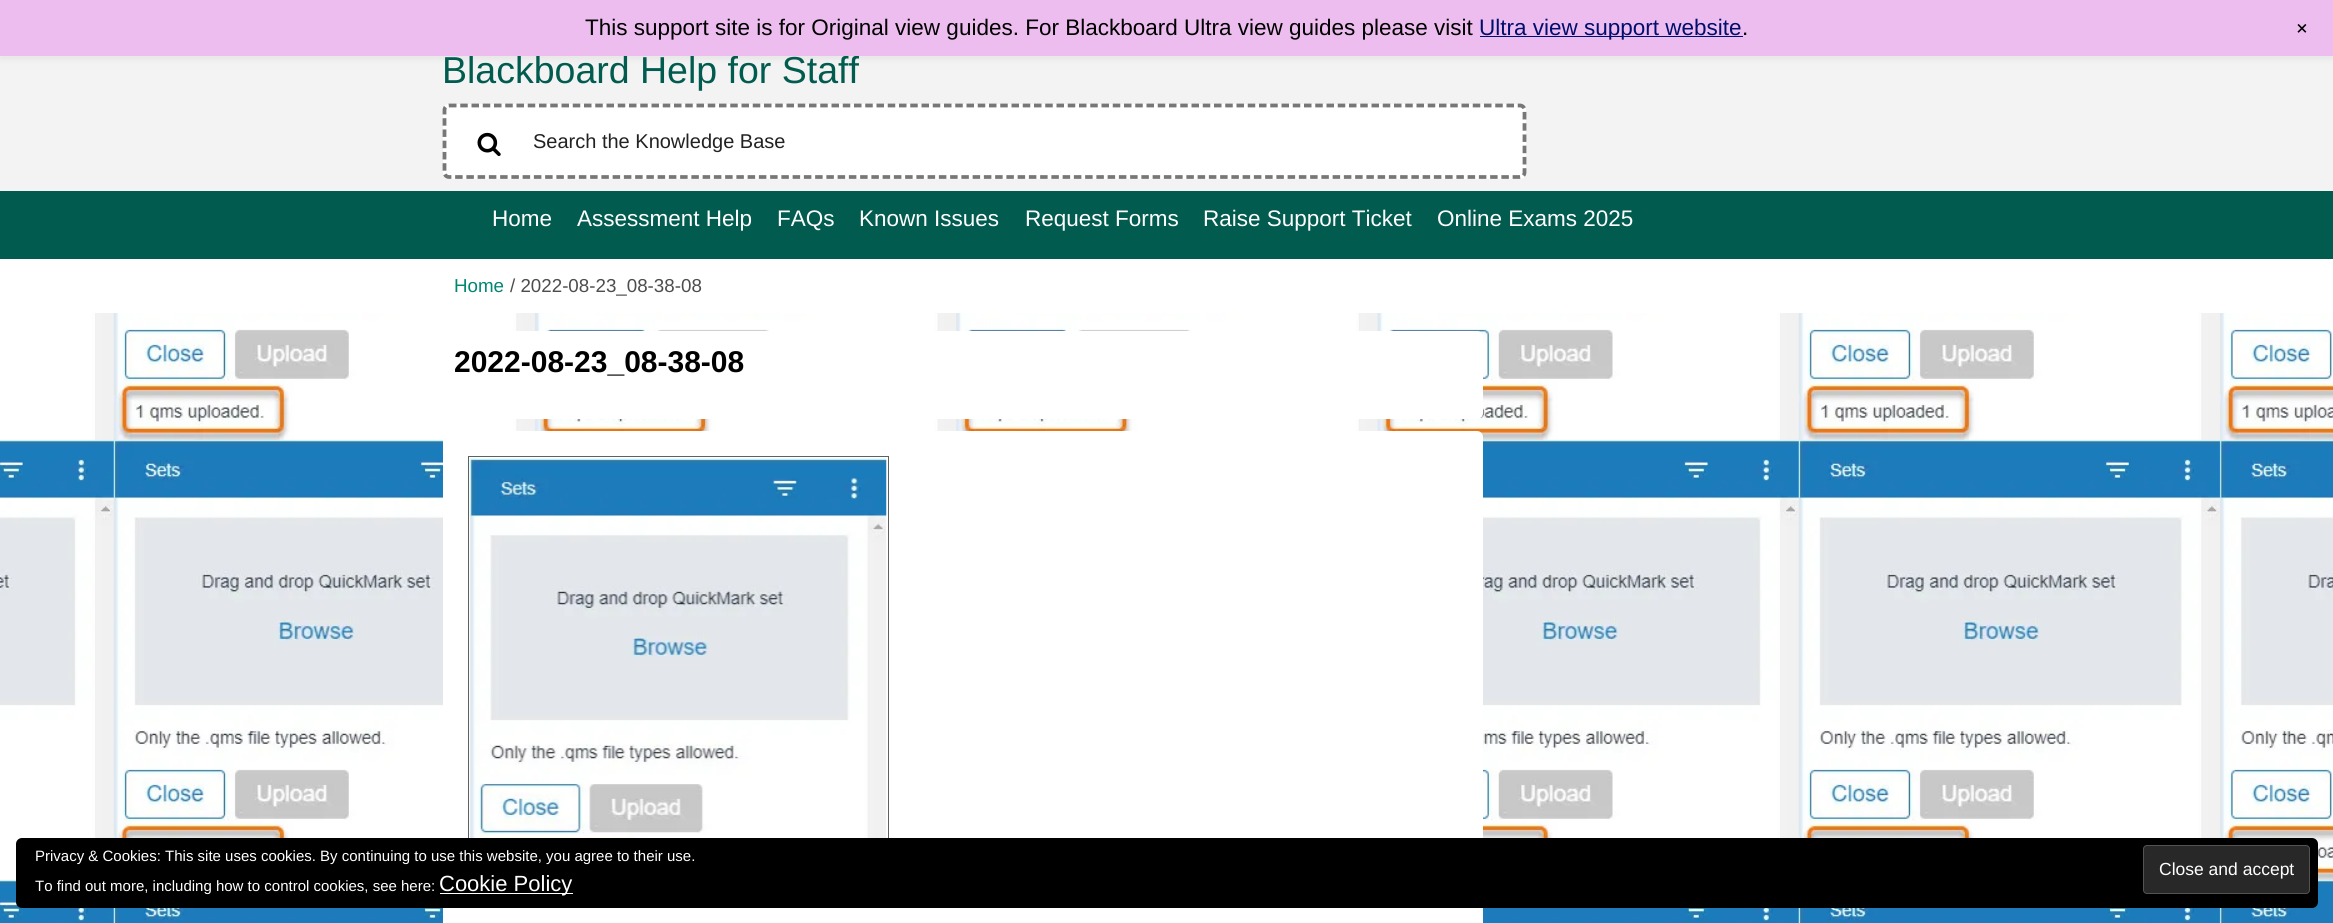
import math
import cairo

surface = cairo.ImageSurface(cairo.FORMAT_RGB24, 2333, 923)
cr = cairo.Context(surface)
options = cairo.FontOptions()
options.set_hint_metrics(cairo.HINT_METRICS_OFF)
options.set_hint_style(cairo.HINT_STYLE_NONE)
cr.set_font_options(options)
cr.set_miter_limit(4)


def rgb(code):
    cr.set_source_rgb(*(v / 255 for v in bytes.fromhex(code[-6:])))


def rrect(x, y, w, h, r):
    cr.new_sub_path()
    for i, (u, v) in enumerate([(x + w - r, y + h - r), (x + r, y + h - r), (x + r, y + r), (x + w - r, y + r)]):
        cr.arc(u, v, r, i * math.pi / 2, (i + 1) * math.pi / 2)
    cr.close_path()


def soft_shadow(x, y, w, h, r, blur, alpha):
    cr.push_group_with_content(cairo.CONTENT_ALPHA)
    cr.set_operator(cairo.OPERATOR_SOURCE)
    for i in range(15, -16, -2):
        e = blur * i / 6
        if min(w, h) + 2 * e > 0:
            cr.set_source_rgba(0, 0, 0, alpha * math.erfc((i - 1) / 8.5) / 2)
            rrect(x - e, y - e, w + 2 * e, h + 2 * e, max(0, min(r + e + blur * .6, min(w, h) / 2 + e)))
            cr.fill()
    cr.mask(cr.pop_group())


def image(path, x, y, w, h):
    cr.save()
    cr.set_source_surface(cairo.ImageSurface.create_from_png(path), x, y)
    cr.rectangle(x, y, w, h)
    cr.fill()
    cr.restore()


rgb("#ffffff")
cr.paint()
image("img/1.png", 0, 313, 2333, 610)
rgb("#f3f3f3")
cr.rectangle(0, 56, 2333, 135)
cr.fill()
rgb("#000000")
soft_shadow(0, 4, 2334, 56, 0, 2.5, 0.05)
rgb("#ffffff")
rrect(443, 104, 1083, 75, 6)
cr.fill()
cr.new_path()
cr.move_to(449, 105.5)
cr.line_to(1520, 105.5)
cr.curve_to(1522.5, 105.5, 1524.5, 107.5, 1524.5, 110)
cr.line_to(1524.5, 172.5)
cr.curve_to(1524.5, 175, 1522.5, 177, 1520, 177)
cr.line_to(449, 177)
cr.curve_to(446.5, 177, 444.5, 175, 444.5, 172.5)
cr.line_to(444.5, 110)
cr.curve_to(444.5, 107.5, 446.5, 105.5, 449, 105.5)
cr.close_path()
rgb("#777777")
cr.set_line_width(3.8)
cr.set_dash([7.5, 3.75])
cr.stroke()
image("img/2.png", 477, 132, 24, 24)
rgb("#015c4f")
cr.rectangle(0, 191, 2333, 68)
cr.fill()
rgb("#ffffff")
rrect(443, 331, 1040, 88, 6)
cr.fill()
rrect(443, 431, 1040, 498, 6)
cr.fill()
cr.rectangle(468.5, 456.5, 420, 438)
rgb("#606060")
cr.set_line_width(1)
cr.set_dash([])
cr.stroke()
image("img/3.png", 469, 458, 418, 380)
rgb("#000000")
rrect(16, 838, 2302, 70, 6)
cr.fill()
rgb("#282828")
rrect(2143.5, 845.5, 166, 48, 3.5)
cr.fill_preserve()
rgb("#535353")
cr.stroke()
rgb("#ffffff")
cr.rectangle(440, 893, 133, 1)
cr.fill()
cr.select_font_face("Liberation Sans")
cr.set_font_size(37.5)
rgb("#015c4f")
cr.move_to(442, 83)
cr.show_text("Blackboard Help for Staff")
rgb("#edbdef")
cr.rectangle(0, 0, 2333, 56)
cr.fill()
cr.set_font_size(22.5)
rgb("#000000")
cr.save()
cr.translate(2292, 29)
cr.rotate(45 * math.pi / 180)
cr.move_to(0, 0)
cr.show_text("+")
cr.restore()
cr.move_to(1742, 35)
cr.show_text(".")
rgb("#000f6c")
cr.rectangle(1480, 36, 263, 1)
cr.fill()
cr.move_to(1479, 35)
cr.show_text("Ultra view support website")
rgb("#000000")
cr.move_to(585, 35)
cr.show_text("This support site is for Original view guides. For Blackboard Ultra view guides please visit")
cr.set_font_size(20)
rgb("#222222")
cr.move_to(533, 148)
cr.show_text("Search the Knowledge Base")
cr.set_font_size(22.5)
rgb("#ffffff")
for x, y, s in [
    (492, 226, "Home"),
    (577, 226, "Assessment Help"),
    (777, 226, "FAQs"),
    (859, 226, "Known Issues"),
    (1025, 226, "Request Forms"),
    (1203, 226, "Raise Support Ticket"),
    (1437, 226, "Online Exams 2025"),
]:
    cr.move_to(x, y)
    cr.show_text(s)
cr.set_font_size(18.75)
rgb("#008673")
cr.move_to(454, 292)
cr.show_text("Home")
rgb("#4d4d4d")
cr.move_to(510, 292)
cr.show_text("/ 2022-08-23_08-38-08")
cr.select_font_face("Liberation Sans", cairo.FONT_SLANT_NORMAL, cairo.FONT_WEIGHT_BOLD)
cr.set_font_size(30)
rgb("#000000")
cr.move_to(454, 372)
cr.show_text("2022-08-23_08-38-08")
cr.select_font_face("Liberation Sans")
cr.set_font_size(15)
rgb("#ffffff")
cr.move_to(35, 861)
cr.show_text("Privacy & Cookies: This site uses cookies. By continuing to use this website, you agree to their use.")
cr.set_font_size(17.5)
cr.move_to(2159, 875)
cr.show_text("Close and accept")
cr.set_font_size(15)
cr.move_to(35, 891)
cr.show_text("To find out more, including how to control cookies, see here:")
cr.set_font_size(22)
cr.move_to(439, 891)
cr.show_text("Cookie Policy")
surface.write_to_png("page.png")
